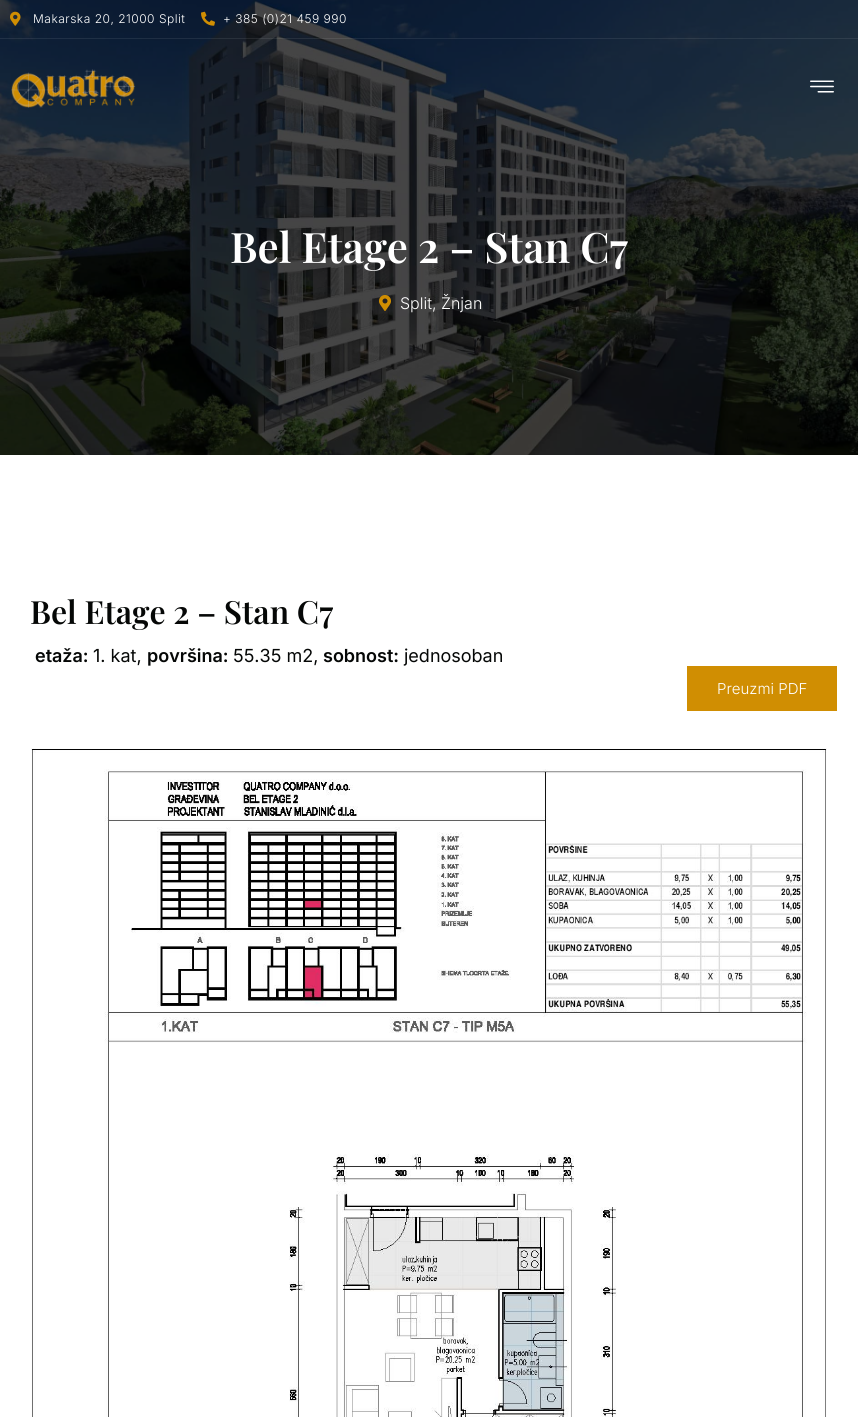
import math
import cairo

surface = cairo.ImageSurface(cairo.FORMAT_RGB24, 858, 1417)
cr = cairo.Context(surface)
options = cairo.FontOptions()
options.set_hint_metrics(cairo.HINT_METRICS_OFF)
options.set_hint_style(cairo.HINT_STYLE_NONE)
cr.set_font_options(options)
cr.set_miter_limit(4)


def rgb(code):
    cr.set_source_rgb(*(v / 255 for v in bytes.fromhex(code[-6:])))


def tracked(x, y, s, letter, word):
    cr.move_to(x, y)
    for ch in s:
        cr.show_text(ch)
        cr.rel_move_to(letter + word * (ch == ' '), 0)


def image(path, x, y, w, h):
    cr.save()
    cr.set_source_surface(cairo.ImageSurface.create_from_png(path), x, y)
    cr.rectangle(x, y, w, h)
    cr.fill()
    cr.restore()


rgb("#ffffff")
cr.paint()
image("img/5.png", 0, 0, 858, 455)
cr.set_source_rgba(1, 1, 1, 0.08)
cr.rectangle(0, 38, 858, 1)
cr.fill()
image("img/1.png", 10, 11, 11, 15)
image("img/2.png", 201, 11, 14, 15)
image("img/3.png", 11, 69, 125, 39)
image("img/4.png", 810, 80, 24, 13)
image("img/6.png", 379, 295, 12, 16)
rgb("#d08e02")
cr.rectangle(687, 666, 150, 45)
cr.fill()
image("img/7.png", 31, 748, 796, 669)
cr.select_font_face("Inter Light")
cr.set_font_size(12)
rgb("#ffffff")
tracked(33, 23, "Makarska 20, 21000 Split", 0.5, 0)
tracked(223, 23, "+ 385 (0)21 459 990", 0.5, 0)
cr.select_font_face("Playfair Display SemiBold")
cr.set_font_size(42)
cr.move_to(230, 263)
cr.show_text("Bel Etage 2 – Stan C7")
cr.select_font_face("Inter Light")
cr.set_font_size(16)
cr.move_to(400, 309)
cr.show_text("Split, Žnjan")
cr.select_font_face("Playfair Display SemiBold")
cr.set_font_size(32)
rgb("#050706")
cr.move_to(30, 624)
cr.show_text("Bel Etage 2 – Stan C7")
cr.select_font_face("Inter SemiBold")
cr.set_font_size(18)
cr.move_to(35, 662)
cr.show_text("etaža:")
cr.select_font_face("Inter")
cr.move_to(93, 662)
cr.show_text("1. kat,")
cr.select_font_face("Inter SemiBold")
cr.move_to(147, 662)
cr.show_text("površina:")
cr.select_font_face("Inter")
cr.move_to(233, 662)
cr.show_text("55.35 m2,")
cr.select_font_face("Inter SemiBold")
cr.move_to(323, 662)
cr.show_text("sobnost:")
cr.select_font_face("Inter")
cr.move_to(404, 662)
cr.show_text("jednosoban")
cr.select_font_face("Inter Light")
cr.set_font_size(15)
rgb("#ffffff")
cr.move_to(717, 694)
cr.show_text("Preuzmi PDF")
surface.write_to_png("page.png")
